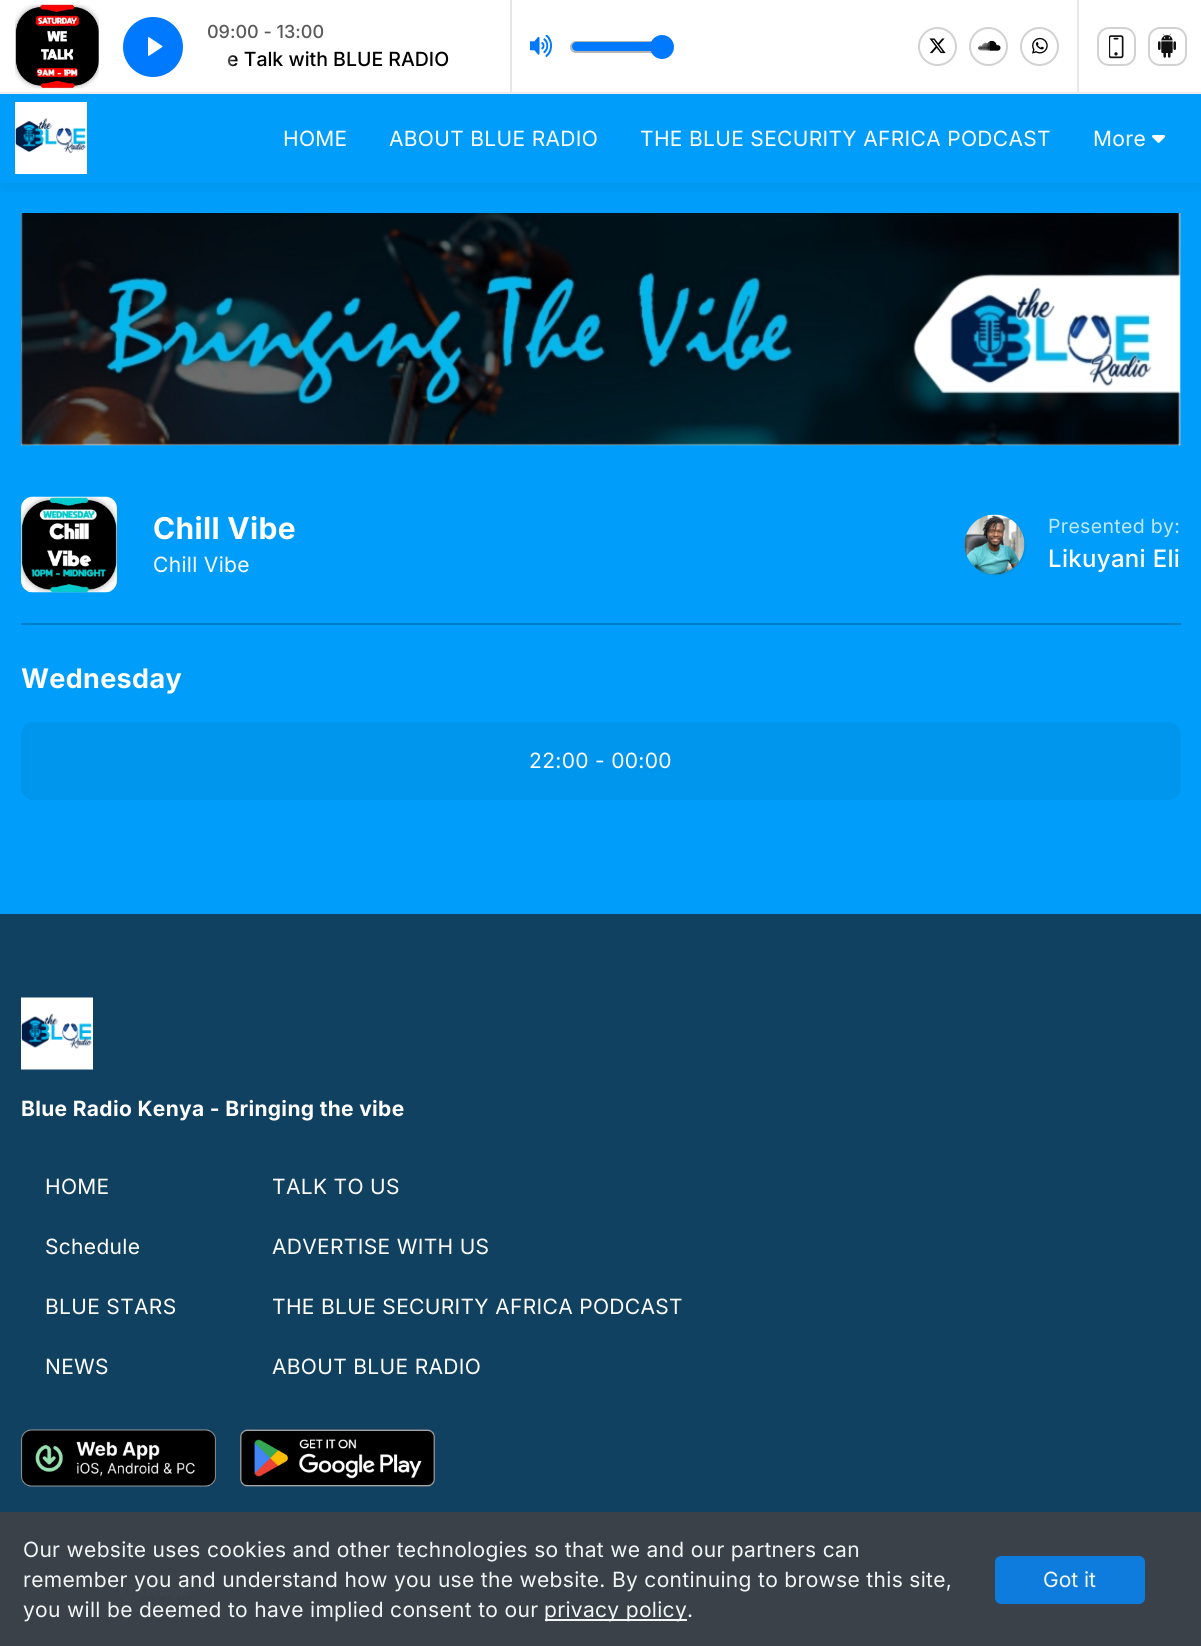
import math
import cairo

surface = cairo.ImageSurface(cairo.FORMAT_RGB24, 1201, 1646)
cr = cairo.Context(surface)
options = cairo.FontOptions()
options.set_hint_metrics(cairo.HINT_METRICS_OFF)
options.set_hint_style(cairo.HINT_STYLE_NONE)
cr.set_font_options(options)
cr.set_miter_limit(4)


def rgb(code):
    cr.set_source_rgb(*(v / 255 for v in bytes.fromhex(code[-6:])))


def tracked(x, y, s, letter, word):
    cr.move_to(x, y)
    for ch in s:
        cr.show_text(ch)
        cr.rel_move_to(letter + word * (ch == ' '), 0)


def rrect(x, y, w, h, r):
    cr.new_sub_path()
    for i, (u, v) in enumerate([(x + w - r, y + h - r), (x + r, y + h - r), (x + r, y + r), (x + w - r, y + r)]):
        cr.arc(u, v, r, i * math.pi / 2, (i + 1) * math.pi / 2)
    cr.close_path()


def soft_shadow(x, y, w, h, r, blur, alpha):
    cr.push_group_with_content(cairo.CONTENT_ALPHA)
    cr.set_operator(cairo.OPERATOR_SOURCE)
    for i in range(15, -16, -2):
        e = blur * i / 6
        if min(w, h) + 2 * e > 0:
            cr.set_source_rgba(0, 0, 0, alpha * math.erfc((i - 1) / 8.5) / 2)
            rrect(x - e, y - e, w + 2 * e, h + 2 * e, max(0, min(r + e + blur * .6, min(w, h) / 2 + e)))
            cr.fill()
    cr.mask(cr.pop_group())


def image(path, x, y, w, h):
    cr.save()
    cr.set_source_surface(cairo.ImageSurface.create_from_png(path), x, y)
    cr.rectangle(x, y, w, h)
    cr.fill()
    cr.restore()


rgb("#009efa")
cr.paint()
image("img/11.png", 21, 213, 1160, 233)
cr.save()
cr.rectangle(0, 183, 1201, 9)
cr.clip()
rgb("#000000")
soft_shadow(0, 96, 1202, 90, 0, 10.5, 0.07)
cr.restore()
for x, y, w, h, color in [
    (0, 0, 1201, 92, "#ffffff"),
    (0, 92, 1201, 2, "#ededed"),
    (510, 0, 2, 92, "#e6e6e6"),
]:
    rgb(color)
    cr.rectangle(x, y, w, h)
    cr.fill()
image("img/1.png", 15, 4, 84, 85)
rgb("#0079ff")
cr.arc(153, 47, 30, 0, 2 * math.pi)
cr.fill()
image("img/2.png", 148, 37, 15, 19)
image("img/3.png", 530, 35, 22, 22)
rgb("#cce4ff")
rrect(571, 42, 91, 10, 5)
cr.fill_preserve()
rgb("#b5b5b5")
cr.stroke()
rgb("#0079ff")
rrect(572, 42, 90, 9, 4.5)
cr.fill()
cr.arc(662, 47, 11, 0, 2 * math.pi)
cr.fill_preserve()
cr.stroke()
cr.arc(937.5, 46.5, 18.5, 0, 2 * math.pi)
rgb("#d2d2d2")
cr.stroke()
image("img/4.png", 929, 38, 17, 16)
cr.arc(988.5, 46.5, 18.5, 0, 2 * math.pi)
cr.stroke()
image("img/5.png", 978, 40, 23, 11)
cr.arc(1039.5, 46.5, 18.5, 0, 2 * math.pi)
cr.stroke()
image("img/6.png", 1032, 37, 16, 17)
rgb("#e6e6e6")
cr.rectangle(1077, 0, 2, 92)
cr.fill()
rrect(1098, 28, 37, 37, 11)
rgb("#d2d2d2")
cr.stroke()
image("img/7.png", 1109, 35, 15, 24)
rrect(1149, 28, 37, 37, 11)
cr.stroke()
image("img/8.png", 1158, 33, 18, 25)
image("img/9.png", 15, 102, 72, 72)
image("img/10.png", 1152, 135, 14, 8)
image("img/12.png", 21, 496, 96, 97)
rgb("#000000")
soft_shadow(966, 516, 60, 60, 30, 1, 0.07)
image("img/13.png", 964, 514, 61, 61)
rgb("#007ec8")
cr.rectangle(21, 623, 1160, 2)
cr.fill()
rgb("#0096ee")
rrect(21, 722, 1160, 78, 12)
cr.fill()
rgb("#114160")
cr.rectangle(0, 914, 1201, 598)
cr.fill()
rgb("#3a4149")
cr.rectangle(0, 1512, 1201, 134)
cr.fill()
image("img/14.png", 21, 997, 72, 73)
image("img/15.png", 21, 1429, 195, 58)
image("img/16.png", 240, 1429, 195, 58)
image("img/17.png", 119, 1581, 71, 21)
rgb("#f3f6f7")
cr.rectangle(545, 1619, 142, 2)
cr.fill()
rgb("#0e7cdc")
rrect(996, 1557, 148, 46, 5)
cr.fill_preserve()
cr.stroke()
cr.select_font_face("Inter Medium")
cr.set_font_size(18)
rgb("#5a5a5a")
cr.move_to(207, 38)
cr.show_text("09:00 - 13:00")
cr.set_font_size(19.5)
rgb("#000000")
cr.move_to(227, 66)
cr.show_text("e Talk with BLUE RADIO")
gradient = cairo.LinearGradient(207, 59, 236, 59)
gradient.add_color_stop_rgba(0.2, 1, 1, 1, 1)
gradient.add_color_stop_rgba(1, 1, 1, 1, 0)
cr.set_source(gradient)
cr.rectangle(227, 55, 9, 12)
cr.fill()
cr.select_font_face("Inter")
cr.set_font_size(21)
rgb("#ffffff")
for x, y, s in [
    (283, 146, "HOME"),
    (389, 146, "ABOUT BLUE RADIO"),
    (640, 146, "THE BLUE SECURITY AFRICA PODCAST"),
    (1093, 146, "More"),
]:
    tracked(x, y, s, 0.32, 0)
cr.select_font_face("Inter", cairo.FONT_SLANT_NORMAL, cairo.FONT_WEIGHT_BOLD)
cr.set_font_size(30)
tracked(153, 539, "Chill Vibe", 0.32, 0)
cr.select_font_face("Inter")
cr.set_font_size(21)
tracked(153, 572, "Chill Vibe", 0.32, 0)
cr.set_font_size(19.5)
rgb("#bfe7fe")
tracked(1048, 533, "Presented by:", 0.32, 0)
cr.select_font_face("Inter Medium")
cr.set_font_size(24)
rgb("#ffffff")
tracked(1048, 567, "Likuyani Eli", 0.32, 0)
cr.select_font_face("Inter", cairo.FONT_SLANT_NORMAL, cairo.FONT_WEIGHT_BOLD)
cr.set_font_size(27)
tracked(21, 688, "Wednesday", 0.32, 0)
cr.select_font_face("Inter")
cr.set_font_size(21)
tracked(529, 768, "22:00 - 00:00", 0.32, 0)
cr.select_font_face("Inter", cairo.FONT_SLANT_NORMAL, cairo.FONT_WEIGHT_BOLD)
tracked(21, 1116, "Blue Radio Kenya - Bringing the vibe", 0.32, 0)
cr.select_font_face("Inter")
for x, y, s in [
    (45, 1194, "HOME"),
    (272, 1194, "TALK TO US"),
    (45, 1254, "Schedule"),
    (272, 1254, "ADVERTISE WITH US"),
    (45, 1314, "BLUE STARS"),
    (272, 1314, "THE BLUE SECURITY AFRICA PODCAST"),
    (45, 1374, "NEWS"),
    (272, 1374, "ABOUT BLUE RADIO"),
]:
    tracked(x, y, s, 0.32, 0)
rgb("#f3f6f7")
for x, y, s in [
    (23, 1557, "Our website uses cookies and other technologies so that we and our partners can"),
    (23, 1587, "remember you and understand how you use the website. By continuing to browse this site,"),
    (23, 1617, "you will be deemed to have implied consent to our"),
    (544, 1617, "privacy policy."),
]:
    tracked(x, y, s, 0.32, 0)
cr.move_to(1043, 1587)
cr.show_text("Got it")
surface.write_to_png("page.png")
